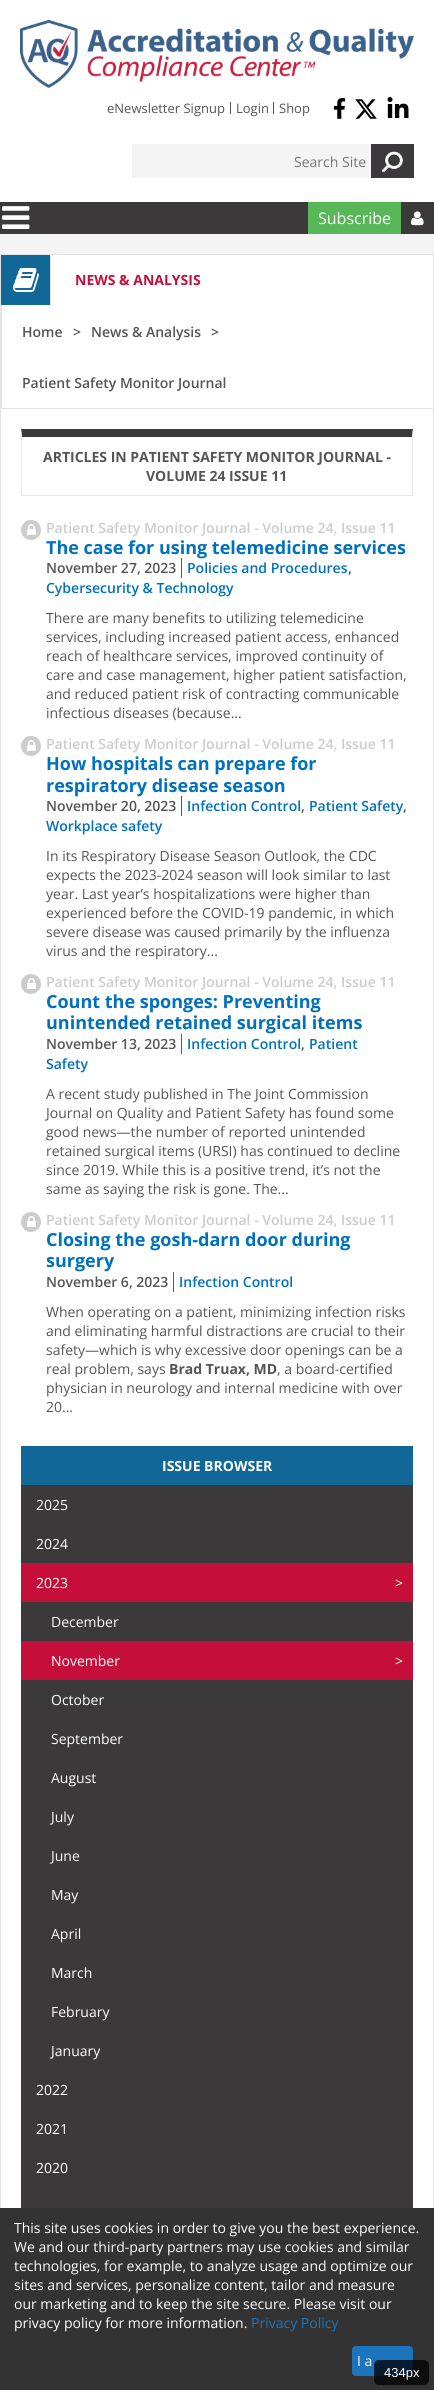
import math
import cairo

surface = cairo.ImageSurface(cairo.FORMAT_RGB24, 434, 2390)
cr = cairo.Context(surface)
options = cairo.FontOptions()
options.set_hint_metrics(cairo.HINT_METRICS_OFF)
options.set_hint_style(cairo.HINT_STYLE_NONE)
cr.set_font_options(options)
cr.set_miter_limit(4)


def rgb(code):
    cr.set_source_rgb(*(v / 255 for v in bytes.fromhex(code[-6:])))


def rrect(x, y, w, h, r):
    cr.new_sub_path()
    for i, (u, v) in enumerate([(x + w - r, y + h - r), (x + r, y + h - r), (x + r, y + r), (x + w - r, y + r)]):
        cr.arc(u, v, r, i * math.pi / 2, (i + 1) * math.pi / 2)
    cr.close_path()


def image(path, x, y, w, h):
    cr.save()
    cr.set_source_surface(cairo.ImageSurface.create_from_png(path), x, y)
    cr.rectangle(x, y, w, h)
    cr.fill()
    cr.restore()


rgb("#f4f4f4")
cr.paint()
rgb("#ffffff")
cr.rectangle(0, 0, 434, 202)
cr.fill()
image("img/1.png", 20, 20, 394, 68)
rgb("#555555")
cr.rectangle(230, 102, 1, 12)
cr.fill()
cr.rectangle(273, 102, 1, 12)
cr.fill()
image("img/2.png", 333, 98, 13, 21)
image("img/3.png", 355, 99, 22, 20)
image("img/4.png", 387, 97, 22, 21)
rgb("#f4f4f4")
cr.rectangle(132, 144, 239, 34)
cr.fill()
image("img/5.png", 371, 144, 43, 34)
rgb("#3b393a")
cr.rectangle(0, 202, 434, 32)
cr.fill()
image("img/6.png", 2, 206, 28, 23)
rgb("#58b756")
cr.rectangle(308, 202, 93, 32)
cr.fill()
image("img/7.png", 411, 211, 13, 15)
for x, y, w, h, color in [
    (2, 255, 431, 153, "#ffffff"),
    (0, 254, 434, 1, "#e3e3e3"),
    (433, 254, 1, 154, "#e3e3e3"),
    (0, 254, 1, 154, "#e3e3e3"),
    (1, 255, 49, 50, "#116798"),
    (50, 255, 1, 50, "#e3e3e3"),
]:
    rgb(color)
    cr.rectangle(x, y, w, h)
    cr.fill()
image("img/8.png", 13, 268, 26, 24)
cr.rectangle(1, 305, 1, 103)
cr.fill()
rgb("#ffffff")
cr.rectangle(1, 409, 432, 1799)
cr.fill()
cr.rectangle(0.5, 408.5, 433, 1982)
rgb("#e3e3e3")
cr.set_line_width(1)
cr.stroke()
rgb("#3b393a")
cr.new_path()
cr.move_to(21, 429)
cr.line_to(413, 429)
cr.line_to(412, 437)
cr.line_to(22, 437)
cr.close_path()
cr.fill()
rgb("#e7e7e7")
cr.new_path()
cr.move_to(413, 429)
cr.line_to(413, 496)
cr.line_to(412, 495)
cr.line_to(412, 437)
cr.close_path()
cr.fill()
cr.rectangle(21, 495, 392, 1)
cr.fill()
cr.new_path()
cr.move_to(21, 496)
cr.line_to(21, 429)
cr.line_to(22, 437)
cr.line_to(22, 495)
cr.close_path()
cr.fill()
rgb("#cccccc")
cr.arc(31, 530, 10, 0, 2 * math.pi)
cr.fill()
image("img/9.png", 27, 524, 9, 11)
cr.arc(31, 746, 10, 0, 2 * math.pi)
cr.fill()
image("img/9.png", 27, 740, 9, 11)
cr.arc(31, 984, 10, 0, 2 * math.pi)
cr.fill()
image("img/9.png", 27, 978, 9, 11)
rgb("#555555")
cr.rectangle(181, 1034, 1, 20)
cr.fill()
rgb("#cccccc")
cr.arc(31, 1222, 10, 0, 2 * math.pi)
cr.fill()
image("img/9.png", 27, 1216, 9, 11)
for x, y, w, h, color in [
    (173, 1272, 1, 20, "#555555"),
    (21, 1485, 392, 723, "#3b393a"),
    (21, 1446, 392, 39, "#116798"),
    (21, 1563, 392, 39, "#c60e3b"),
    (21, 1641, 392, 39, "#c60e3b"),
    (0, 2208, 434, 182, "#333333"),
]:
    rgb(color)
    cr.rectangle(x, y, w, h)
    cr.fill()
rgb("#1c75bc")
rrect(352, 2346, 61, 30, 4)
cr.fill()
cr.set_source_rgba(0, 0, 0, 0.75)
rrect(374, 2360, 55, 25, 5)
cr.fill()
cr.select_font_face("Open Sans")
cr.set_font_size(13)
rgb("#555555")
for x, y, s in [
    (107, 113, "eNewsletter Signup"),
    (236, 113, "Login"),
    (279, 113, "Shop"),
]:
    cr.move_to(x, y)
    cr.show_text(s)
cr.set_font_size(14)
rgb("#757575")
cr.move_to(294, 167)
cr.show_text("Search Site")
cr.set_font_size(16)
rgb("#ffffff")
cr.move_to(318, 224)
cr.show_text("Subscribe")
cr.select_font_face("Open Sans", cairo.FONT_SLANT_NORMAL, cairo.FONT_WEIGHT_BOLD)
cr.set_font_size(14)
rgb("#c60e3b")
cr.move_to(75, 285)
cr.show_text("NEWS & ANALYSIS")
cr.select_font_face("Open Sans SemiBold")
rgb("#555555")
for x, y, s in [
    (22, 337, "Home"),
    (73, 337, ">"),
    (91, 337, "News & Analysis"),
    (211, 337, ">"),
    (22, 388, "Patient Safety Monitor Journal"),
]:
    cr.move_to(x, y)
    cr.show_text(s)
cr.select_font_face("Open Sans", cairo.FONT_SLANT_NORMAL, cairo.FONT_WEIGHT_BOLD)
cr.move_to(43, 462)
cr.show_text("ARTICLES IN PATIENT SAFETY MONITOR JOURNAL -")
cr.move_to(146, 481)
cr.show_text("VOLUME 24 ISSUE 11")
cr.select_font_face("Open Sans SemiBold")
rgb("#cccccc")
cr.move_to(46, 533)
cr.show_text("Patient Safety Monitor Journal - Volume 24, Issue 11")
cr.select_font_face("Open Sans", cairo.FONT_SLANT_NORMAL, cairo.FONT_WEIGHT_BOLD)
cr.set_font_size(18)
rgb("#0071bc")
cr.move_to(46, 554)
cr.show_text("The case for using telemedicine services")
rgb("#555555")
cr.rectangle(181, 558, 1, 20)
cr.fill()
cr.select_font_face("Open Sans SemiBold")
cr.set_font_size(14)
cr.move_to(46, 573)
cr.show_text("November 27, 2023")
rgb("#0071bc")
cr.move_to(187, 573)
cr.show_text("Policies and Procedures")
rgb("#555555")
cr.move_to(348, 573)
cr.show_text(",")
rgb("#0071bc")
cr.move_to(46, 593)
cr.show_text("Cybersecurity & Technology")
cr.select_font_face("Open Sans")
rgb("#555555")
for x, y, s in [
    (46, 623, "There are many benefits to utilizing telemedicine"),
    (46, 642, "services, including increased patient access, enhanced"),
    (46, 661, "reach of healthcare services, improved continuity of"),
    (46, 680, "care and case management, higher patient satisfaction,"),
    (46, 699, "and reduced patient risk of contracting communicable"),
    (46, 718, "infectious diseases (because..."),
]:
    cr.move_to(x, y)
    cr.show_text(s)
cr.select_font_face("Open Sans SemiBold")
rgb("#cccccc")
cr.move_to(46, 749)
cr.show_text("Patient Safety Monitor Journal - Volume 24, Issue 11")
cr.select_font_face("Open Sans", cairo.FONT_SLANT_NORMAL, cairo.FONT_WEIGHT_BOLD)
cr.set_font_size(18)
rgb("#0071bc")
cr.move_to(46, 770)
cr.show_text("How hospitals can prepare for")
cr.move_to(46, 792)
cr.show_text("respiratory disease season")
rgb("#555555")
cr.rectangle(181, 796, 1, 20)
cr.fill()
cr.select_font_face("Open Sans SemiBold")
cr.set_font_size(14)
cr.move_to(46, 811)
cr.show_text("November 20, 2023")
rgb("#0071bc")
cr.move_to(187, 811)
cr.show_text("Infection Control")
rgb("#555555")
cr.move_to(301, 811)
cr.show_text(",")
rgb("#0071bc")
cr.move_to(309, 811)
cr.show_text("Patient Safety")
rgb("#555555")
cr.move_to(403, 811)
cr.show_text(",")
rgb("#0071bc")
cr.move_to(46, 831)
cr.show_text("Workplace safety")
cr.select_font_face("Open Sans")
rgb("#555555")
for x, y, s in [
    (46, 861, "In its Respiratory Disease Season Outlook, the CDC"),
    (46, 880, "expects the 2023-2024 season will look similar to last"),
    (46, 899, "year. Last year’s hospitalizations were higher than"),
    (46, 918, "experienced before the COVID-19 pandemic, in which"),
    (46, 937, "severe disease was caused primarily by the influenza"),
    (46, 956, "virus and the respiratory..."),
]:
    cr.move_to(x, y)
    cr.show_text(s)
cr.select_font_face("Open Sans SemiBold")
rgb("#cccccc")
cr.move_to(46, 987)
cr.show_text("Patient Safety Monitor Journal - Volume 24, Issue 11")
cr.select_font_face("Open Sans", cairo.FONT_SLANT_NORMAL, cairo.FONT_WEIGHT_BOLD)
cr.set_font_size(18)
rgb("#0071bc")
cr.move_to(46, 1008)
cr.show_text("Count the sponges: Preventing")
cr.move_to(46, 1029)
cr.show_text("unintended retained surgical items")
cr.select_font_face("Open Sans SemiBold")
cr.set_font_size(14)
rgb("#555555")
cr.move_to(46, 1049)
cr.show_text("November 13, 2023")
rgb("#0071bc")
cr.move_to(187, 1049)
cr.show_text("Infection Control")
rgb("#555555")
cr.move_to(301, 1049)
cr.show_text(",")
rgb("#0071bc")
cr.move_to(309, 1049)
cr.show_text("Patient")
cr.move_to(46, 1069)
cr.show_text("Safety")
cr.select_font_face("Open Sans")
rgb("#555555")
for x, y, s in [
    (46, 1099, "A recent study published in The Joint Commission"),
    (46, 1118, "Journal on Quality and Patient Safety has found some"),
    (46, 1137, "good news—the number of reported unintended"),
    (46, 1156, "retained surgical items (URSI) has continued to decline"),
    (46, 1175, "since 2019. While this is a positive trend, it’s not the"),
    (46, 1194, "same as saying the risk is gone. The..."),
]:
    cr.move_to(x, y)
    cr.show_text(s)
cr.select_font_face("Open Sans SemiBold")
rgb("#cccccc")
cr.move_to(46, 1225)
cr.show_text("Patient Safety Monitor Journal - Volume 24, Issue 11")
cr.select_font_face("Open Sans", cairo.FONT_SLANT_NORMAL, cairo.FONT_WEIGHT_BOLD)
cr.set_font_size(18)
rgb("#0071bc")
cr.move_to(46, 1246)
cr.show_text("Closing the gosh-darn door during")
cr.move_to(46, 1267)
cr.show_text("surgery")
cr.select_font_face("Open Sans SemiBold")
cr.set_font_size(14)
rgb("#555555")
cr.move_to(46, 1287)
cr.show_text("November 6, 2023")
rgb("#0071bc")
cr.move_to(179, 1287)
cr.show_text("Infection Control")
cr.select_font_face("Open Sans")
rgb("#555555")
for x, y, s in [
    (46, 1317, "When operating on a patient, minimizing infection risks"),
    (46, 1336, "and eliminating harmful distractions are crucial to their"),
    (46, 1355, "safety—which is why excessive door openings can be a"),
    (46, 1374, "real problem, says"),
]:
    cr.move_to(x, y)
    cr.show_text(s)
cr.select_font_face("Open Sans", cairo.FONT_SLANT_NORMAL, cairo.FONT_WEIGHT_BOLD)
cr.move_to(169, 1374)
cr.show_text("Brad Truax, MD")
cr.select_font_face("Open Sans")
for x, y, s in [
    (277, 1374, ", a board-certified"),
    (46, 1393, "physician in neurology and internal medicine with over"),
    (46, 1412, "20..."),
]:
    cr.move_to(x, y)
    cr.show_text(s)
cr.select_font_face("Open Sans", cairo.FONT_SLANT_NORMAL, cairo.FONT_WEIGHT_BOLD)
rgb("#ffffff")
cr.move_to(162, 1471)
cr.show_text("ISSUE BROWSER")
cr.select_font_face("Open Sans")
for x, y, s in [
    (36, 1510, "2025"),
    (36, 1549, "2024"),
    (36, 1588, "2023"),
    (395, 1588, ">"),
    (51, 1627, "December"),
    (51, 1666, "November"),
    (395, 1666, ">"),
    (51, 1705, "October"),
    (51, 1744, "September"),
    (51, 1783, "August"),
    (51, 1822, "July"),
    (51, 1861, "June"),
    (51, 1900, "May"),
    (51, 1939, "April"),
    (51, 1978, "March"),
    (51, 2017, "February"),
    (51, 2056, "January"),
    (36, 2095, "2022"),
    (36, 2134, "2021"),
    (36, 2173, "2020"),
    (14, 2233, "This site uses cookies in order to give you the best experience."),
    (14, 2252, "We and our third-party partners may use cookies and similar"),
    (14, 2271, "technologies, for example, to analyze usage and optimize our"),
    (14, 2290, "sites and services, personalize content, tailor and measure"),
    (14, 2309, "our marketing and to keep the site secure. Please visit our"),
    (14, 2328, "privacy policy for more information."),
]:
    cr.move_to(x, y)
    cr.show_text(s)
rgb("#1c75bc")
cr.move_to(251, 2328)
cr.show_text("Privacy Policy")
rgb("#ffffff")
cr.move_to(357, 2366)
cr.show_text("I a")
cr.select_font_face("Liberation Sans")
cr.set_font_size(13)
cr.move_to(384, 2377)
cr.show_text("434px")
surface.write_to_png("page.png")
